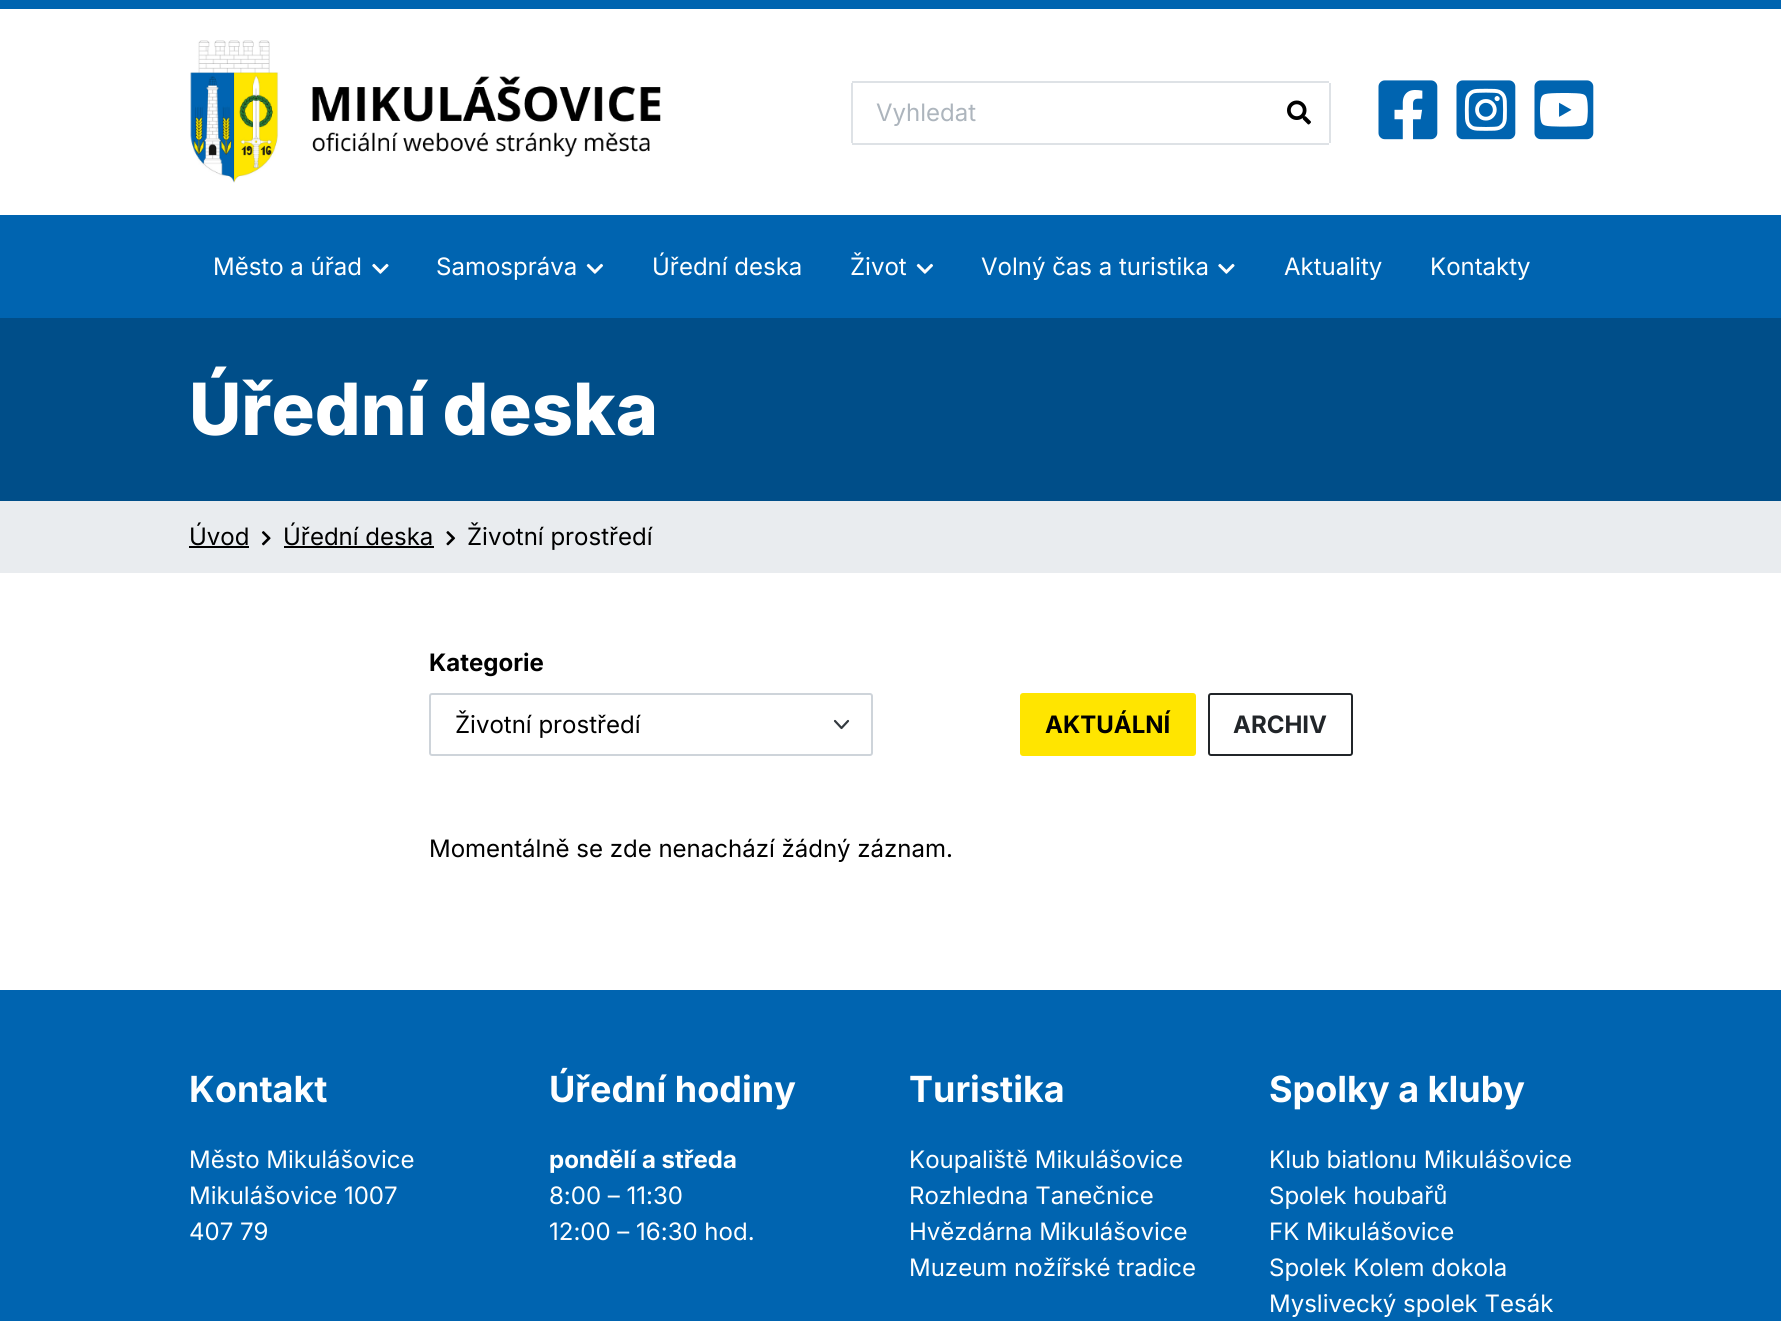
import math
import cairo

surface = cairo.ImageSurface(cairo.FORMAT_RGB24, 1781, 1321)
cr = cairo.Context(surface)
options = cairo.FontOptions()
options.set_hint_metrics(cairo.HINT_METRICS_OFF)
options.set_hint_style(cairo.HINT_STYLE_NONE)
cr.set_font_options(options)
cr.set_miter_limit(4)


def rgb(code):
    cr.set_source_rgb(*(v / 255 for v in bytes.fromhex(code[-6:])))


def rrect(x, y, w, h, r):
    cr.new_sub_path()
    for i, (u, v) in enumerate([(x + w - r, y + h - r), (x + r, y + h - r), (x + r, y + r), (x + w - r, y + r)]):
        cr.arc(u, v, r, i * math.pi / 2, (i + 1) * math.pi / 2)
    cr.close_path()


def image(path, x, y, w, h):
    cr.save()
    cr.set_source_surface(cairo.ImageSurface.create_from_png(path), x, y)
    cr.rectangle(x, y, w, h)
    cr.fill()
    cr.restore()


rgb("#ffffff")
cr.paint()
rgb("#0064b0")
cr.rectangle(0, 0, 1781, 9)
cr.fill()
image("img/1.png", 190, 40, 471, 143)
for x, y, w, h, color in [
    (852, 81, 477, 2, "#dee2e6"),
    (852, 143, 477, 2, "#dee2e6"),
    (851, 83, 2, 60, "#dee2e6"),
    (1329, 83, 2, 60, "#dee2e6"),
]:
    rgb(color)
    cr.rectangle(x, y, w, h)
    cr.fill()
image("img/2.png", 1287, 100, 24, 25)
image("img/3.png", 1378, 80, 60, 60)
image("img/4.png", 1456, 80, 60, 60)
image("img/5.png", 1534, 80, 60, 60)
rgb("#0064b0")
cr.rectangle(0, 215, 1781, 103)
cr.fill()
image("img/6.png", 372, 263, 17, 11)
image("img/7.png", 586, 263, 17, 11)
image("img/7.png", 916, 263, 17, 11)
image("img/6.png", 1218, 263, 17, 11)
for x, y, w, h, color in [
    (0, 318, 1781, 183, "#004e89"),
    (0, 501, 1781, 72, "#e9ecef"),
    (189, 546, 60, 2, "#000000"),
]:
    rgb(color)
    cr.rectangle(x, y, w, h)
    cr.fill()
image("img/8.png", 261, 531, 10, 15)
cr.rectangle(284, 546, 150, 2)
cr.fill()
image("img/9.png", 446, 531, 10, 15)
cr.new_path()
cr.move_to(835, 721)
cr.line_to(841.5, 728)
cr.line_to(848, 721)
rgb("#343a40")
cr.set_line_width(2.2)
cr.set_line_cap(cairo.LINE_CAP_ROUND)
cr.set_line_join(cairo.LINE_JOIN_ROUND)
cr.stroke()
rrect(430, 694, 442, 61, 2)
rgb("#ced4da")
cr.set_line_width(2)
cr.set_line_cap(cairo.LINE_CAP_BUTT)
cr.set_line_join(cairo.LINE_JOIN_MITER)
cr.stroke()
rgb("#ffe500")
rrect(1021, 694, 174, 61, 2)
cr.fill_preserve()
cr.stroke()
rrect(1209, 694, 143, 61, 2)
rgb("#212529")
cr.stroke()
rgb("#0064b0")
cr.rectangle(0, 990, 1781, 331)
cr.fill()
cr.select_font_face("Inter")
cr.set_font_size(24)
rgb("#adb5bd")
cr.move_to(876, 121)
cr.show_text("Vyhledat")
rgb("#ffffff")
for x, y, s in [
    (213, 275, "Město a úřad"),
    (436, 275, "Samospráva"),
    (652, 275, "Úřední deska"),
    (850, 275, "Život"),
    (981, 275, "Volný čas a turistika"),
    (1284, 275, "Aktuality"),
    (1430, 275, "Kontakty"),
]:
    cr.move_to(x, y)
    cr.show_text(s)
cr.select_font_face("Inter ExtraBold")
cr.set_font_size(72)
cr.move_to(189, 435)
cr.show_text("Úřední deska")
cr.select_font_face("Inter")
cr.set_font_size(24)
rgb("#000000")
for x, y, s in [
    (189, 545, "Úvod"),
    (283, 545, "Úřední deska"),
    (467, 545, "Životní prostředí"),
]:
    cr.move_to(x, y)
    cr.show_text(s)
cr.select_font_face("Inter", cairo.FONT_SLANT_NORMAL, cairo.FONT_WEIGHT_BOLD)
cr.move_to(429, 671)
cr.show_text("Kategorie")
cr.select_font_face("Inter")
cr.move_to(455, 733)
cr.show_text("Životní prostředí")
cr.select_font_face("Inter", cairo.FONT_SLANT_NORMAL, cairo.FONT_WEIGHT_BOLD)
cr.move_to(1045, 733)
cr.show_text("AKTUÁLNÍ")
rgb("#212529")
cr.move_to(1233, 733)
cr.show_text("ARCHIV")
cr.select_font_face("Inter")
rgb("#000000")
cr.move_to(429, 857)
cr.show_text("Momentálně se zde nenachází žádný záznam.")
cr.select_font_face("Inter", cairo.FONT_SLANT_NORMAL, cairo.FONT_WEIGHT_BOLD)
cr.set_font_size(36)
rgb("#ffffff")
cr.move_to(189, 1102)
cr.show_text("Kontakt")
cr.select_font_face("Inter")
cr.set_font_size(24)
for x, y, s in [
    (189, 1168, "Město Mikulášovice"),
    (189, 1204, "Mikulášovice 1007"),
    (189, 1240, "407 79"),
]:
    cr.move_to(x, y)
    cr.show_text(s)
cr.select_font_face("Inter", cairo.FONT_SLANT_NORMAL, cairo.FONT_WEIGHT_BOLD)
cr.set_font_size(36)
cr.move_to(549, 1102)
cr.show_text("Úřední hodiny")
cr.set_font_size(24)
cr.move_to(549, 1168)
cr.show_text("pondělí a středa")
cr.select_font_face("Inter")
cr.move_to(549, 1204)
cr.show_text("8:00 – 11:30")
cr.move_to(549, 1240)
cr.show_text("12:00 – 16:30 hod.")
cr.select_font_face("Inter", cairo.FONT_SLANT_NORMAL, cairo.FONT_WEIGHT_BOLD)
cr.set_font_size(36)
cr.move_to(909, 1102)
cr.show_text("Turistika")
cr.select_font_face("Inter")
cr.set_font_size(24)
for x, y, s in [
    (909, 1168, "Koupaliště Mikulášovice"),
    (909, 1204, "Rozhledna Tanečnice"),
    (909, 1240, "Hvězdárna Mikulášovice"),
    (909, 1276, "Muzeum nožířské tradice"),
]:
    cr.move_to(x, y)
    cr.show_text(s)
cr.select_font_face("Inter", cairo.FONT_SLANT_NORMAL, cairo.FONT_WEIGHT_BOLD)
cr.set_font_size(36)
cr.move_to(1269, 1102)
cr.show_text("Spolky a kluby")
cr.select_font_face("Inter")
cr.set_font_size(24)
for x, y, s in [
    (1269, 1168, "Klub biatlonu Mikulášovice"),
    (1269, 1204, "Spolek houbařů"),
    (1269, 1240, "FK Mikulášovice"),
    (1269, 1276, "Spolek Kolem dokola"),
    (1269, 1312, "Myslivecký spolek Tesák"),
]:
    cr.move_to(x, y)
    cr.show_text(s)
surface.write_to_png("page.png")
